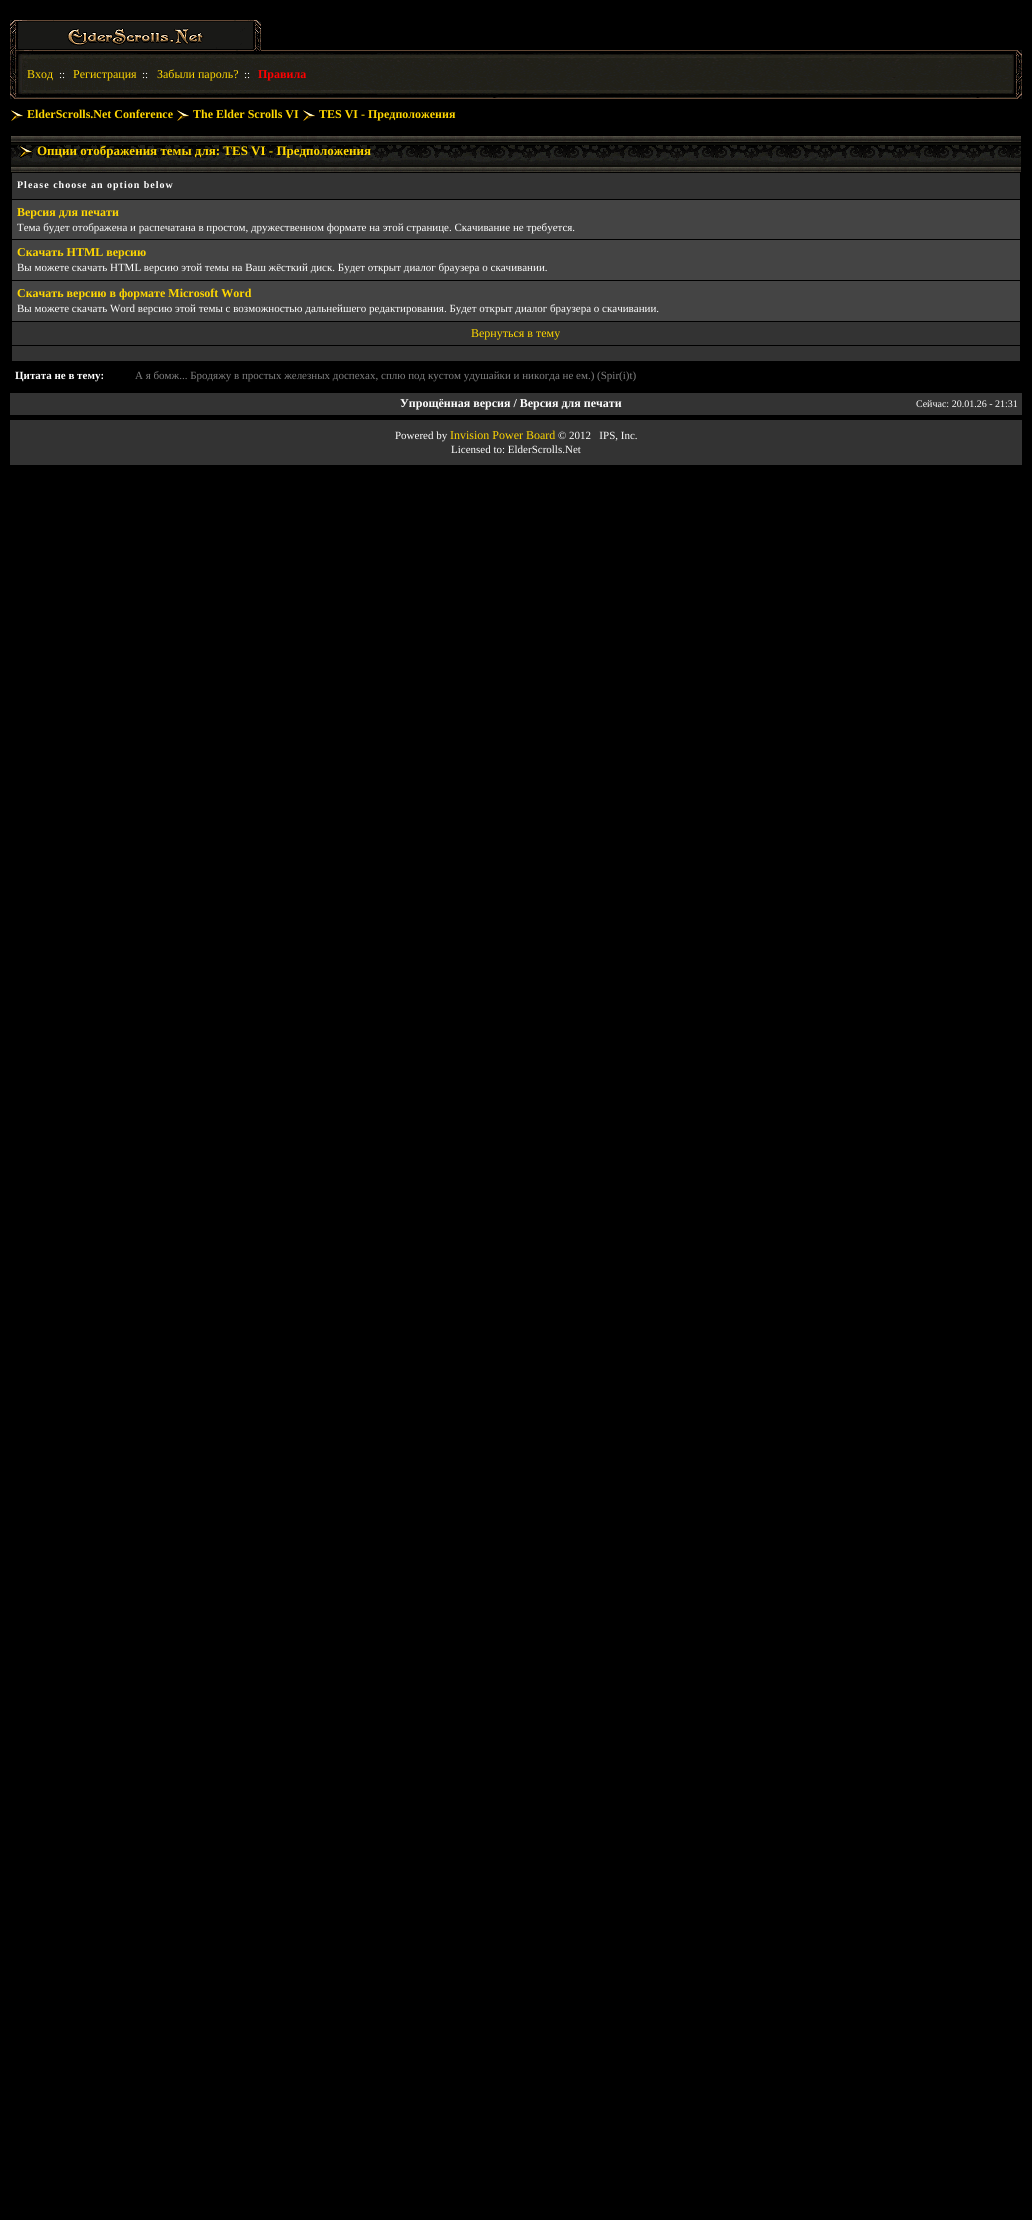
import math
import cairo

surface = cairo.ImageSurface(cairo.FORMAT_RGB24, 1032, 2220)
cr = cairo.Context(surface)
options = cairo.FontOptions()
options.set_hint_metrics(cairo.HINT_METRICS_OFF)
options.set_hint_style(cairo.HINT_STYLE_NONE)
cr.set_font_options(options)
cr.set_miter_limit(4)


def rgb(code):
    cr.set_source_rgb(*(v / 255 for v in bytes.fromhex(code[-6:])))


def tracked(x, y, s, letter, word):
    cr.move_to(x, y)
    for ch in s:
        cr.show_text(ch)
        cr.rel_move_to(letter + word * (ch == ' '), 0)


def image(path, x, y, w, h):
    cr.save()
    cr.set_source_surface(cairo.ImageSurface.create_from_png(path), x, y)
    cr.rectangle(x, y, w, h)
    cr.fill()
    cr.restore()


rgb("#000000")
cr.paint()
image("img/1.png", 10, 20, 251, 31)
rgb("#654a37")
cr.rectangle(261, 50, 751, 1)
cr.fill()
image("img/2.png", 1012, 50, 10, 1)
image("img/3.png", 10, 51, 1002, 48)
image("img/4.png", 1012, 51, 10, 48)
image("img/5.png", 11, 110, 12, 11)
image("img/5.png", 177, 110, 12, 11)
image("img/5.png", 303, 110, 12, 11)
image("img/6.png", 11, 136, 1010, 36)
image("img/7.png", 19, 146, 14, 12)
for x, y, w, h, color in [
    (12, 173, 1008, 26, "#333333"),
    (12, 200, 1008, 39, "#444444"),
    (12, 240, 1008, 40, "#444444"),
    (12, 281, 1008, 40, "#444444"),
    (12, 322, 1008, 23, "#333333"),
    (12, 346, 1008, 15, "#333333"),
    (10, 393, 1012, 22, "#333333"),
    (10, 420, 1012, 45, "#333333"),
]:
    rgb(color)
    cr.rectangle(x, y, w, h)
    cr.fill()
cr.select_font_face("Liberation Serif")
cr.set_font_size(12)
rgb("#ffd700")
cr.move_to(27, 78)
cr.show_text("Вход")
cr.set_font_size(11)
rgb("#ffffff")
cr.move_to(59, 78)
cr.show_text("::")
cr.set_font_size(12)
rgb("#ffd700")
cr.move_to(73, 78)
cr.show_text("Регистрация")
cr.set_font_size(11)
rgb("#ffffff")
cr.move_to(142, 78)
cr.show_text("::")
cr.set_font_size(12)
rgb("#ffd700")
cr.move_to(157, 78)
cr.show_text("Забыли пароль?")
cr.set_font_size(11)
rgb("#ffffff")
cr.move_to(244, 78)
cr.show_text("::")
cr.select_font_face("Liberation Serif", cairo.FONT_SLANT_NORMAL, cairo.FONT_WEIGHT_BOLD)
cr.set_font_size(12)
rgb("#ff0000")
cr.move_to(258, 78)
cr.show_text("Правила")
rgb("#ffd700")
for x, y, s in [
    (27, 118, "ElderScrolls.Net Conference"),
    (193, 118, "The Elder Scrolls VI"),
    (319, 118, "TES VI - Предположения"),
]:
    cr.move_to(x, y)
    cr.show_text(s)
cr.set_font_size(13)
cr.move_to(37, 155)
cr.show_text("Опции отображения темы для: TES VI - Предположения")
cr.set_font_size(10)
rgb("#ffffff")
tracked(17, 188, "Please choose an option below", 1, 0)
cr.set_font_size(12)
rgb("#ffd700")
cr.move_to(17, 216)
cr.show_text("Версия для печати")
cr.select_font_face("Liberation Serif")
cr.set_font_size(11)
rgb("#ffffff")
cr.move_to(17, 231)
cr.show_text("Тема будет отображена и распечатана в простом, дружественном формате на этой странице. Скачивание не требуется.")
cr.select_font_face("Liberation Serif", cairo.FONT_SLANT_NORMAL, cairo.FONT_WEIGHT_BOLD)
cr.set_font_size(12)
rgb("#ffd700")
cr.move_to(17, 256)
cr.show_text("Скачать HTML версию")
cr.select_font_face("Liberation Serif")
cr.set_font_size(11)
rgb("#ffffff")
cr.move_to(17, 271)
cr.show_text("Вы можете скачать HTML версию этой темы на Ваш жёсткий диск. Будет открыт диалог браузера о скачивании.")
cr.select_font_face("Liberation Serif", cairo.FONT_SLANT_NORMAL, cairo.FONT_WEIGHT_BOLD)
cr.set_font_size(12)
rgb("#ffd700")
cr.move_to(17, 297)
cr.show_text("Скачать версию в формате Microsoft Word")
cr.select_font_face("Liberation Serif")
cr.set_font_size(11)
rgb("#ffffff")
cr.move_to(17, 312)
cr.show_text("Вы можете скачать Word версию этой темы с возможностью дальнейшего редактирования. Будет открыт диалог браузера о скачивании.")
cr.set_font_size(12)
rgb("#ffd700")
cr.move_to(471, 337)
cr.show_text("Вернуться в тему")
cr.select_font_face("Liberation Serif", cairo.FONT_SLANT_NORMAL, cairo.FONT_WEIGHT_BOLD)
cr.set_font_size(11)
rgb("#ffffff")
cr.move_to(15, 379)
cr.show_text("Цитата не в тему:")
cr.select_font_face("Liberation Serif")
rgb("#808080")
cr.move_to(135, 379)
cr.show_text("А я бомж... Бродяжу в простых железных доспехах, сплю под кустом удушайки и никогда не ем.) (Spir(i)t)")
cr.select_font_face("Liberation Serif", cairo.FONT_SLANT_NORMAL, cairo.FONT_WEIGHT_BOLD)
cr.set_font_size(12)
rgb("#ffffff")
cr.move_to(400, 407)
cr.show_text("Упрощённая версия / Версия для печати")
cr.select_font_face("Liberation Serif")
cr.set_font_size(10)
cr.move_to(916, 407)
cr.show_text("Сейчас: 20.01.26 - 21:31")
cr.set_font_size(11)
cr.move_to(395, 439)
cr.show_text("Роwеrеd by")
cr.set_font_size(12)
rgb("#ffd700")
cr.move_to(450, 439)
cr.show_text("Invisiоn Роwеr Воаrd")
cr.set_font_size(11)
rgb("#ffffff")
cr.move_to(558, 439)
cr.show_text("© 2012   IPS, Inc.")
cr.move_to(451, 453)
cr.show_text("Licensed to: ElderScrolls.Net")
surface.write_to_png("page.png")
